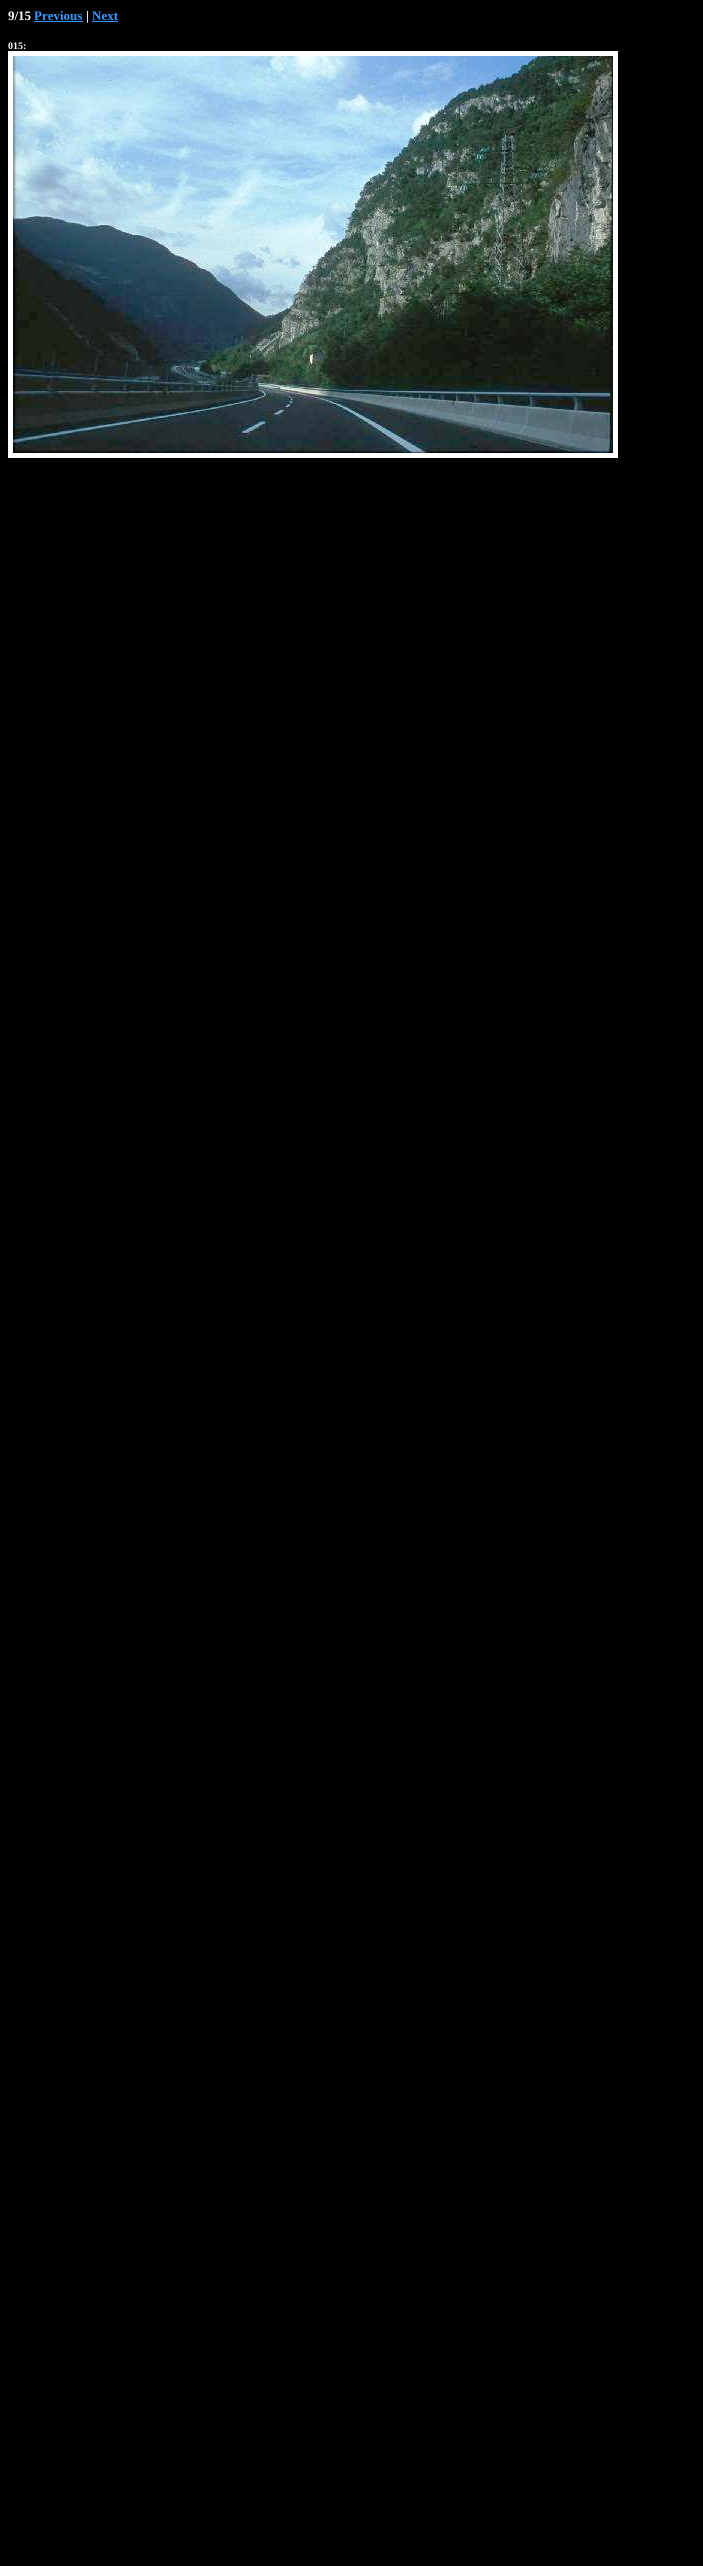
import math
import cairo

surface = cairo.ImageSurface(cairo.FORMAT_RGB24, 703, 2566)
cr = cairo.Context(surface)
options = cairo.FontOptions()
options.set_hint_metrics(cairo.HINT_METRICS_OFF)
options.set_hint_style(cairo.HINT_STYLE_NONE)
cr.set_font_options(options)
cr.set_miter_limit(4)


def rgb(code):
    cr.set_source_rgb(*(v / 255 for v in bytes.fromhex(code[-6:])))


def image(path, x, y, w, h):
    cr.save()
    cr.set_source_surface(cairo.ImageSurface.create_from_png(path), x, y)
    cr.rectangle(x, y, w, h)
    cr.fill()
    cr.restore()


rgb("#000000")
cr.paint()
rgb("#3399ff")
cr.rectangle(34, 21, 49, 1)
cr.fill()
cr.rectangle(92, 21, 26, 1)
cr.fill()
cr.rectangle(10.5, 53.5, 605, 402)
rgb("#ffffff")
cr.set_line_width(5)
cr.stroke()
image("img/1.png", 13, 56, 600, 397)
cr.select_font_face("Liberation Serif", cairo.FONT_SLANT_NORMAL, cairo.FONT_WEIGHT_BOLD)
cr.set_font_size(13)
cr.move_to(8, 20)
cr.show_text("9/15")
rgb("#3399ff")
cr.move_to(34, 20)
cr.show_text("Previous")
rgb("#ffffff")
cr.move_to(86, 20)
cr.show_text("|")
rgb("#3399ff")
cr.move_to(92, 20)
cr.show_text("Next")
cr.set_font_size(10)
rgb("#ffffff")
cr.move_to(8, 49)
cr.show_text("015:")
surface.write_to_png("page.png")
